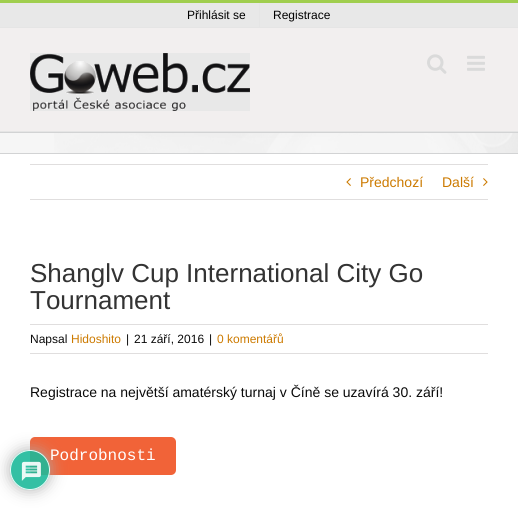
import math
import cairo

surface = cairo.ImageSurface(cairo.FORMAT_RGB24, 518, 510)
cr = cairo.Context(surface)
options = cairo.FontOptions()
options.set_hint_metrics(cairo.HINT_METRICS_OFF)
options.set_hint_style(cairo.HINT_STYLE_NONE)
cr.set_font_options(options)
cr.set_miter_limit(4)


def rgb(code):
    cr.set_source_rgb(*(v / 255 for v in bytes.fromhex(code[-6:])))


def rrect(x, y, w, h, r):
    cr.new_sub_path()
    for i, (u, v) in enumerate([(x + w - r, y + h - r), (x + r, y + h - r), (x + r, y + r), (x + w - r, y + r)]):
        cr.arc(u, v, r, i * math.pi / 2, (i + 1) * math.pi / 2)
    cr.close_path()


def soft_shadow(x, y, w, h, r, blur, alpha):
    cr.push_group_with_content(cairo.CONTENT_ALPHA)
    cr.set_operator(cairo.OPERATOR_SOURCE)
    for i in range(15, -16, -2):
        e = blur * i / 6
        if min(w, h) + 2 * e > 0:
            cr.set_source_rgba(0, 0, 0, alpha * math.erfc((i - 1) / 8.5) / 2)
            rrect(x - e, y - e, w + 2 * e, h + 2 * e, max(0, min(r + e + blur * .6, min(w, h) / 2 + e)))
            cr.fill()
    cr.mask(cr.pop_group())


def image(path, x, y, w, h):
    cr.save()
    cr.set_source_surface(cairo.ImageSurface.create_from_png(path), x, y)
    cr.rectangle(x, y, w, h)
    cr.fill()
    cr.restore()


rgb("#ffffff")
cr.paint()
for x, y, w, h, color in [
    (0, 3, 518, 24, "#e8e8e8"),
    (0, 0, 518, 3, "#a0ce4e"),
    (0, 27, 518, 1, "#e5e5e5"),
    (259, 3, 1, 24, "#e5e5e5"),
    (0, 28, 518, 103, "#f2efef"),
    (0, 131, 518, 1, "#e5e5e5"),
]:
    rgb(color)
    cr.rectangle(x, y, w, h)
    cr.fill()
image("img/1.png", 30, 53, 220, 58)
image("img/2.png", 427, 54, 20, 20)
image("img/3.png", 467, 55, 18, 16)
rgb("#f6f6f6")
cr.rectangle(0, 133, 518, 20)
cr.fill()
image("img/4.png", 54, 133, 464, 20)
for x, y, w, h, color in [
    (0, 132, 518, 1, "#d2d3d4"),
    (0, 153, 518, 1, "#d2d3d4"),
    (30, 164, 458, 1, "#e0dede"),
    (30, 199, 458, 1, "#e0dede"),
]:
    rgb(color)
    cr.rectangle(x, y, w, h)
    cr.fill()
image("img/5.png", 346, 178, 5, 8)
image("img/6.png", 483, 178, 5, 8)
cr.rectangle(30, 324, 458, 1)
cr.fill()
cr.rectangle(30, 353, 458, 1)
cr.fill()
rgb("#f16338")
rrect(30, 437, 146, 38, 5)
cr.fill()
cr.save()
cr.set_fill_rule(cairo.FILL_RULE_EVEN_ODD)
cr.new_path()
cr.move_to(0, 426)
cr.line_to(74, 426)
cr.line_to(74, 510)
cr.line_to(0, 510)
cr.close_path()
cr.move_to(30, 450)
cr.curve_to(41, 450, 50, 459, 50, 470)
cr.curve_to(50, 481, 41, 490, 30, 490)
cr.curve_to(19, 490, 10, 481, 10, 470)
cr.curve_to(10, 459, 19, 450, 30, 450)
cr.close_path()
cr.clip()
rgb("#aaaaaa")
soft_shadow(10, 450, 40, 40, 20, 7.5, 0.9)
cr.restore()
cr.set_source_rgba(0.114, 0.725, 0.604, 0.9)
cr.arc(30, 470, 20, 0, 2 * math.pi)
cr.fill()
cr.arc(30, 470, 19.5, 0, 2 * math.pi)
cr.set_source_rgba(1, 1, 1, 0.9)
cr.set_line_width(1)
cr.stroke()
image("img/7.png", 21, 461, 20, 20)
cr.select_font_face("Liberation Sans")
cr.set_font_size(12)
rgb("#000000")
cr.move_to(187, 19)
cr.show_text("Přihlásit se")
cr.move_to(273, 19)
cr.show_text("Registrace")
cr.set_font_size(14)
rgb("#cc7a00")
cr.move_to(360, 187)
cr.show_text("Předchozí")
cr.move_to(442, 187)
cr.show_text("Další")
cr.set_font_size(26)
rgb("#333333")
cr.move_to(30, 282)
cr.show_text("Shanglv Cup International City Go")
cr.move_to(30, 309)
cr.show_text("Tournament")
cr.set_font_size(12)
rgb("#0a0a0a")
cr.move_to(30, 343)
cr.show_text("Napsal")
rgb("#cc7a00")
cr.move_to(71, 343)
cr.show_text("Hidoshito")
rgb("#0a0a0a")
for x, y, s in [
    (126, 343, "|"),
    (134, 343, "21 září, 2016"),
    (209, 343, "|"),
]:
    cr.move_to(x, y)
    cr.show_text(s)
rgb("#cc7a00")
cr.move_to(217, 343)
cr.show_text("0 komentářů")
cr.set_font_size(14)
rgb("#0a0a0a")
cr.move_to(30, 397)
cr.show_text("Registrace na největší amatérský turnaj v Číně se uzavírá 30. září!")
cr.select_font_face("Liberation Mono")
cr.set_font_size(16)
rgb("#ffffff")
cr.move_to(50, 460)
cr.show_text("Podrobnosti")
surface.write_to_png("page.png")
